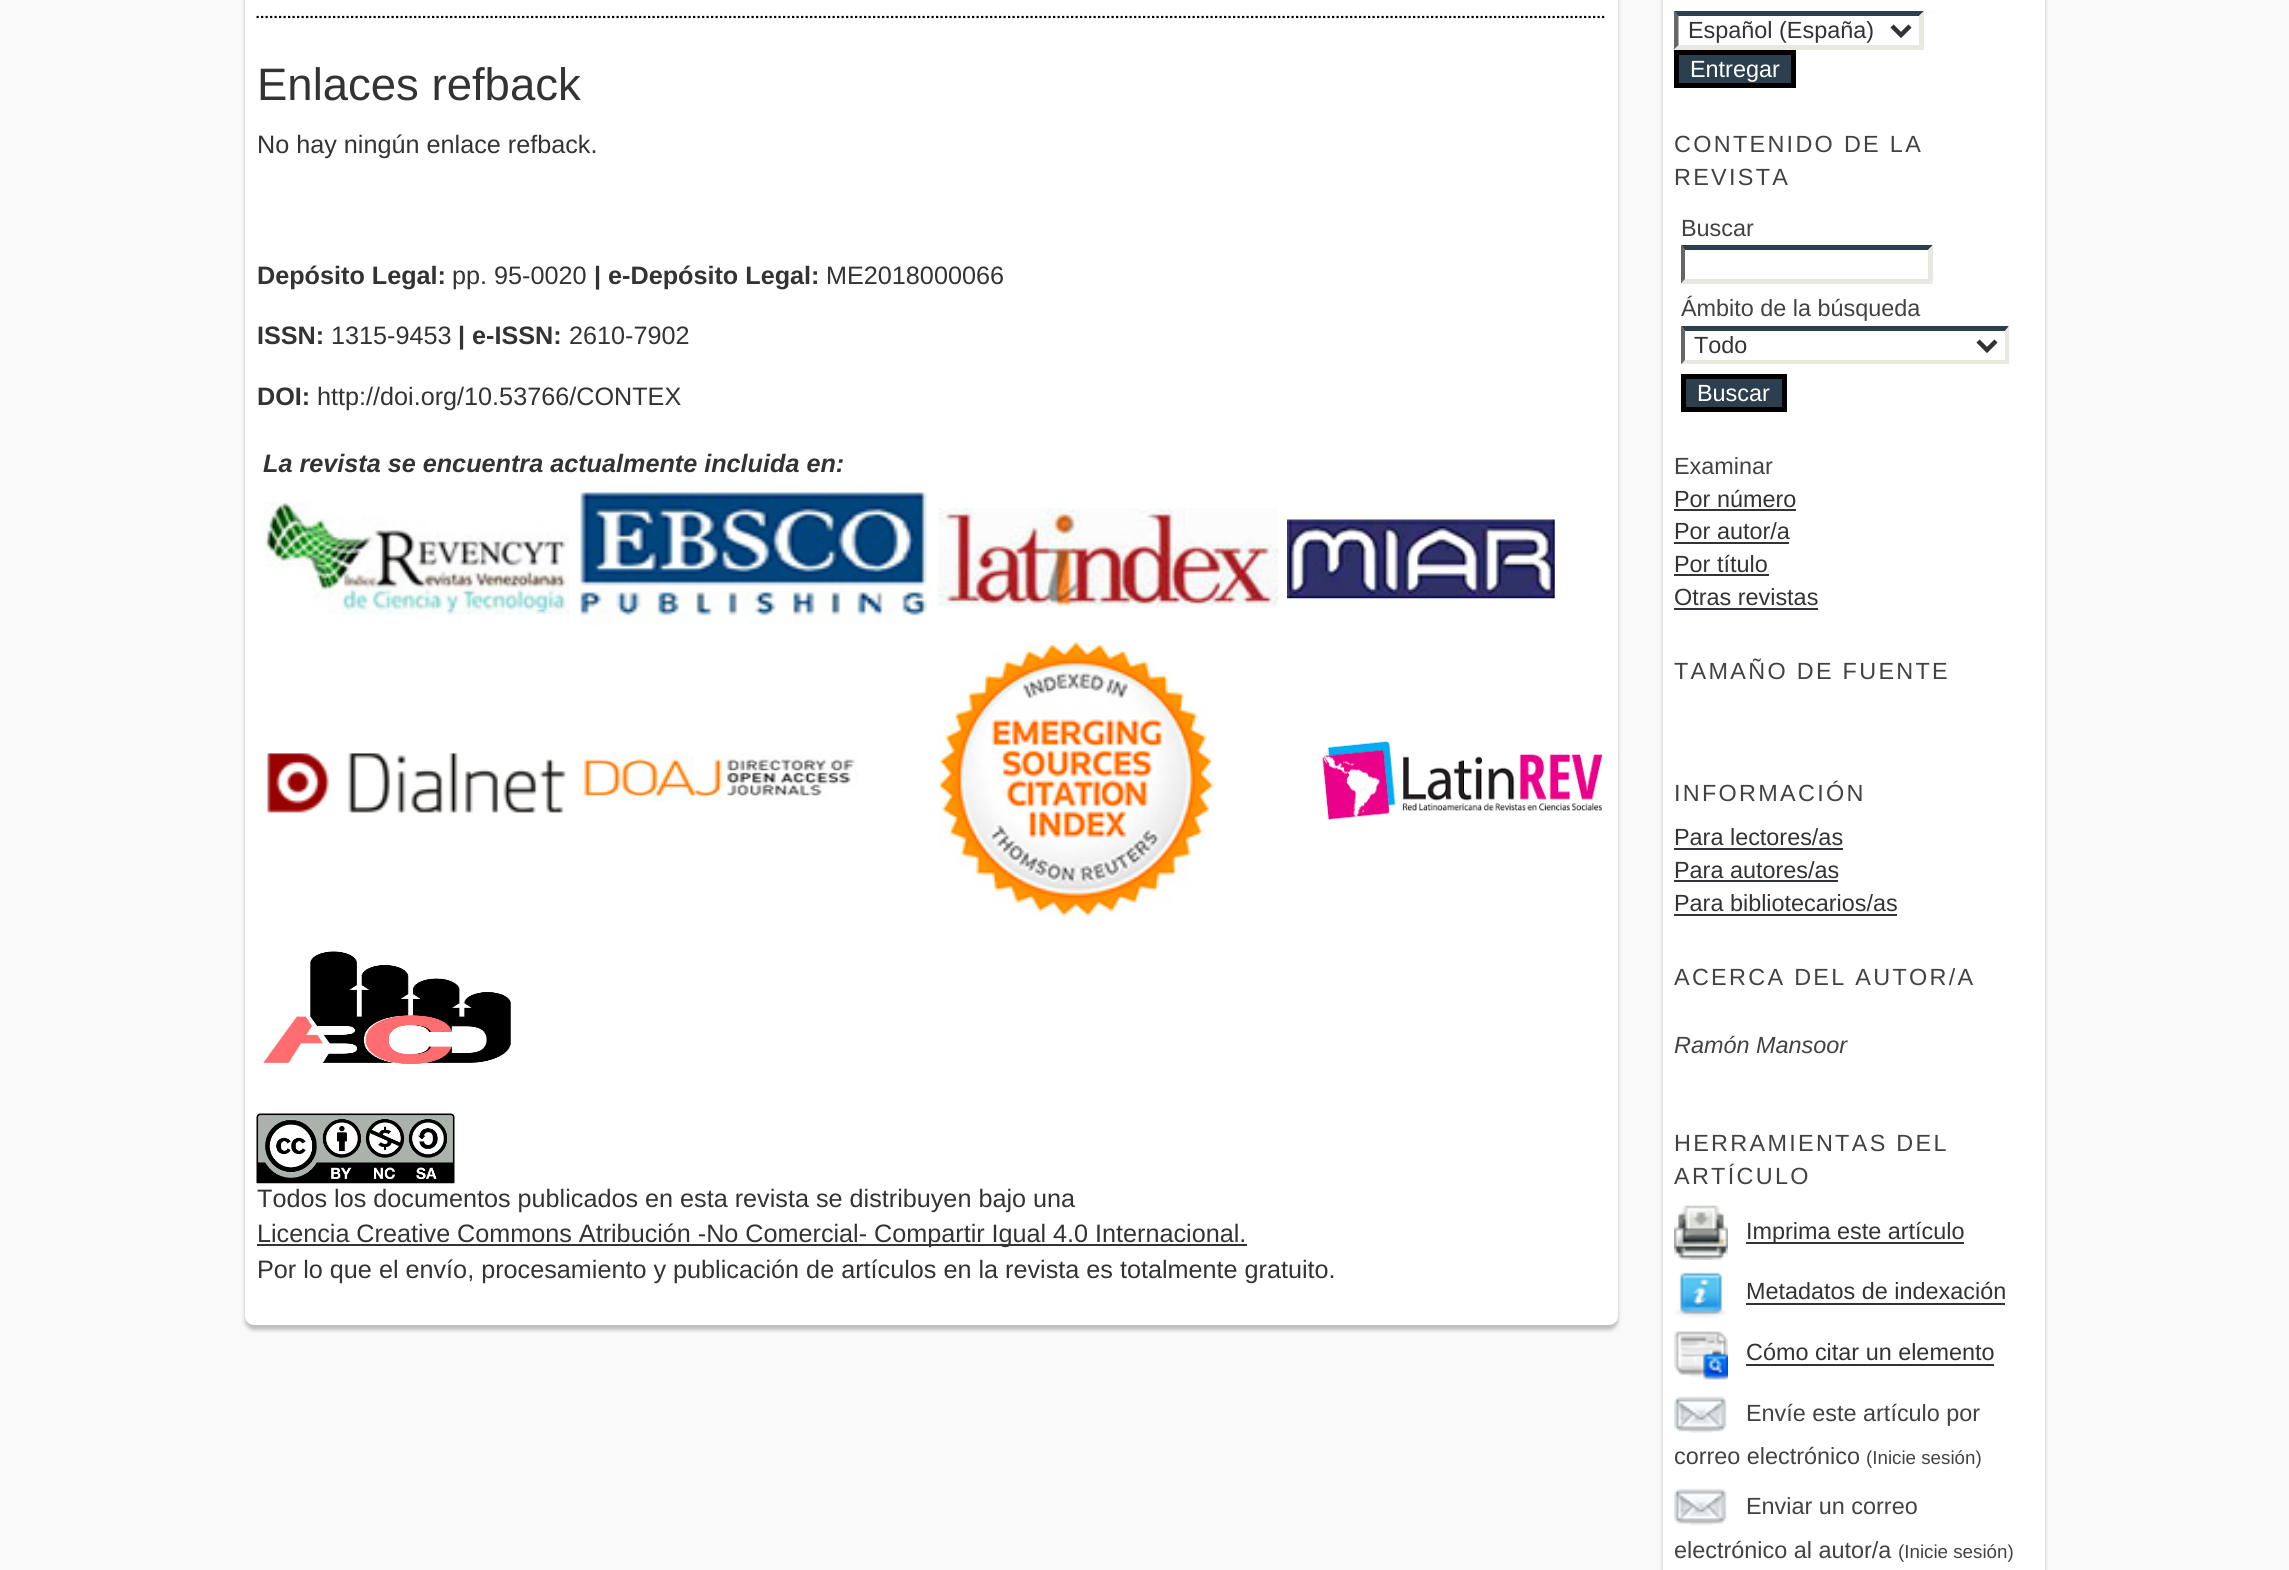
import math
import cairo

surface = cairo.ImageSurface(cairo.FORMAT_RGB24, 2289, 1570)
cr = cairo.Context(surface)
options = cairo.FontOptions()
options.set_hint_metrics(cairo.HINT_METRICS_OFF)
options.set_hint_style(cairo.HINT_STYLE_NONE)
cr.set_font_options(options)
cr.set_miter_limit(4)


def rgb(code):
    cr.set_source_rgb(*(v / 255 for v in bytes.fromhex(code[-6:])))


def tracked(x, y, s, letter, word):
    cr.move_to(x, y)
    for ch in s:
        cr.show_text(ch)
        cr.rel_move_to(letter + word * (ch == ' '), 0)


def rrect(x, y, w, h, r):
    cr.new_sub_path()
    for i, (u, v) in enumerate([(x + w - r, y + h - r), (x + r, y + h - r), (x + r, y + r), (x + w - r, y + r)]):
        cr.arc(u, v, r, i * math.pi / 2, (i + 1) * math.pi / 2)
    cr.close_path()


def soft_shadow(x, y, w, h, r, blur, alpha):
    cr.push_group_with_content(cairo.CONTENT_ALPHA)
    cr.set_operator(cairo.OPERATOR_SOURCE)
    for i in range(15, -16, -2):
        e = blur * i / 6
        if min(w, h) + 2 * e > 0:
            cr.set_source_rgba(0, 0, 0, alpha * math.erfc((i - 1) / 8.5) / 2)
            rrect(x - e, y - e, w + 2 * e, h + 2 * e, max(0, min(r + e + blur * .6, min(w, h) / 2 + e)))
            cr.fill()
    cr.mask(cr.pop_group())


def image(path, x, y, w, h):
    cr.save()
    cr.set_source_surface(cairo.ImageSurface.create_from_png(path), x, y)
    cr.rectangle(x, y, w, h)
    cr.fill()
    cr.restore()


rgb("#f9f9f9")
cr.paint()
rgb("#000000")
soft_shadow(245, -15, 1373, 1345, 9, 2, 0.24)
rgb("#ffffff")
rrect(245, -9, 1373, 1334, 9)
cr.fill()
cr.new_path()
cr.move_to(256.5, 17)
cr.line_to(1606.5, 17)
rgb("#000000")
cr.set_line_width(2.2)
cr.set_dash([2.25, 2.25])
cr.stroke()
image("img/1.png", 263, 501, 307, 113)
image("img/2.png", 579, 490, 350, 135)
image("img/3.png", 938, 508, 340, 100)
image("img/4.png", 1287, 519, 268, 80)
image("img/5.png", 267, 753, 299, 60)
image("img/6.png", 578, 754, 280, 47)
image("img/7.png", 938, 639, 276, 278)
image("img/8.png", 1322, 740, 281, 80)
image("img/9.png", 263, 951, 248, 113)
image("img/10.png", 256, 1113, 199, 71)
rgb("#303338")
cr.rectangle(257, 1244, 990, 2)
cr.fill()
rgb("#000000")
soft_shadow(1663, -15, 382, 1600, 9, 2, 0.24)
rgb("#ffffff")
cr.rectangle(1663, 0, 382, 1570)
cr.fill()
rgb("#2c3f4f")
cr.new_path()
cr.move_to(1674, 11)
cr.line_to(1924, 11)
cr.line_to(1919, 16)
cr.line_to(1678, 16)
cr.close_path()
cr.fill()
rgb("#e8e8e1")
cr.new_path()
cr.move_to(1924, 11)
cr.line_to(1924, 49.5)
cr.line_to(1919, 45)
cr.line_to(1919, 16)
cr.close_path()
cr.fill()
cr.new_path()
cr.move_to(1924, 50)
cr.line_to(1674, 50)
cr.line_to(1678, 45)
cr.line_to(1919, 45)
cr.close_path()
cr.fill()
rgb("#666666")
cr.new_path()
cr.move_to(1674, 49.5)
cr.line_to(1674, 11)
cr.line_to(1678.5, 16)
cr.line_to(1678.5, 45)
cr.close_path()
cr.fill()
cr.new_path()
cr.move_to(1892, 26)
cr.line_to(1901, 35)
cr.line_to(1910, 26)
rgb("#333333")
cr.set_line_width(4.5)
cr.set_dash([])
cr.stroke()
rgb("#2c3f4f")
cr.rectangle(1676.5, 52.5, 117, 33)
cr.fill_preserve()
rgb("#000000")
cr.set_line_width(5)
cr.stroke()
rgb("#2c3f4f")
cr.new_path()
cr.move_to(1681, 245)
cr.line_to(1933, 245)
cr.line_to(1928, 250)
cr.line_to(1685, 250)
cr.close_path()
cr.fill()
rgb("#e8e8e1")
cr.new_path()
cr.move_to(1933, 245)
cr.line_to(1933, 283.5)
cr.line_to(1928, 279)
cr.line_to(1928, 250)
cr.close_path()
cr.fill()
cr.new_path()
cr.move_to(1933, 284)
cr.line_to(1681, 284)
cr.line_to(1685, 279)
cr.line_to(1928, 279)
cr.close_path()
cr.fill()
rgb("#666666")
cr.new_path()
cr.move_to(1681, 283.5)
cr.line_to(1681, 245)
cr.line_to(1685, 250)
cr.line_to(1685, 279)
cr.close_path()
cr.fill()
rgb("#2c3f4f")
cr.new_path()
cr.move_to(1681, 326)
cr.line_to(2009, 326)
cr.line_to(2005, 331)
cr.line_to(1685, 331)
cr.close_path()
cr.fill()
rgb("#e8e8e1")
cr.new_path()
cr.move_to(2009, 326)
cr.line_to(2009, 364.5)
cr.line_to(2005, 360)
cr.line_to(2005, 331)
cr.close_path()
cr.fill()
cr.new_path()
cr.move_to(2009, 364)
cr.line_to(1681, 364)
cr.line_to(1685, 360)
cr.line_to(2005, 360)
cr.close_path()
cr.fill()
rgb("#666666")
cr.new_path()
cr.move_to(1681, 364.5)
cr.line_to(1681, 326)
cr.line_to(1685, 331)
cr.line_to(1685, 360)
cr.close_path()
cr.fill()
cr.new_path()
cr.move_to(1978, 341)
cr.line_to(1987, 350)
cr.line_to(1996, 341)
rgb("#333333")
cr.set_line_width(4.5)
cr.stroke()
rgb("#2c3f4f")
cr.rectangle(1683.5, 376.5, 101, 33)
cr.fill_preserve()
rgb("#000000")
cr.set_line_width(5)
cr.stroke()
for x, y, w, h, color in [
    (1674, 509, 122, 2, "#303338"),
    (1674, 542, 115, 2, "#303338"),
    (1674, 574, 95, 2, "#303338"),
    (1674, 608, 144, 2, "#303338"),
    (1674, 848, 169, 2, "#303338"),
    (1674, 880, 164, 2, "#303338"),
    (1674, 914, 223, 2, "#303338"),
]:
    rgb(color)
    cr.rectangle(x, y, w, h)
    cr.fill()
image("img/11.png", 1674, 1205, 54, 55)
cr.rectangle(1746, 1242, 218, 2)
cr.fill()
image("img/12.png", 1675, 1272, 52, 46)
cr.rectangle(1746, 1303, 259, 2)
cr.fill()
image("img/13.png", 1674, 1331, 54, 49)
cr.rectangle(1746, 1364, 248, 2)
cr.fill()
image("img/14.png", 1674, 1396, 53, 37)
image("img/15.png", 1674, 1488, 53, 38)
cr.select_font_face("Liberation Sans")
cr.set_font_size(45.5)
rgb("#333333")
cr.move_to(257, 100)
cr.show_text("Enlaces refback")
cr.set_font_size(25.2)
cr.move_to(257, 153)
cr.show_text("No hay ningún enlace refback.")
cr.select_font_face("Liberation Sans", cairo.FONT_SLANT_NORMAL, cairo.FONT_WEIGHT_BOLD)
cr.move_to(257, 284)
cr.show_text("Depósito Legal:")
cr.select_font_face("Liberation Sans")
cr.move_to(452, 284)
cr.show_text("pp. 95-0020")
cr.select_font_face("Liberation Sans", cairo.FONT_SLANT_NORMAL, cairo.FONT_WEIGHT_BOLD)
cr.move_to(594, 284)
cr.show_text("| e-Depósito Legal:")
cr.select_font_face("Liberation Sans")
cr.move_to(826, 284)
cr.show_text("ME2018000066")
cr.select_font_face("Liberation Sans", cairo.FONT_SLANT_NORMAL, cairo.FONT_WEIGHT_BOLD)
cr.move_to(257, 344)
cr.show_text("ISSN:")
cr.select_font_face("Liberation Sans")
cr.move_to(331, 344)
cr.show_text("1315-9453")
cr.select_font_face("Liberation Sans", cairo.FONT_SLANT_NORMAL, cairo.FONT_WEIGHT_BOLD)
cr.move_to(458, 344)
cr.show_text("| e-ISSN:")
cr.select_font_face("Liberation Sans")
cr.move_to(569, 344)
cr.show_text("2610-7902")
cr.select_font_face("Liberation Sans", cairo.FONT_SLANT_NORMAL, cairo.FONT_WEIGHT_BOLD)
cr.move_to(257, 405)
cr.show_text("DOI:")
cr.select_font_face("Liberation Sans")
cr.move_to(317, 405)
cr.show_text("http://doi.org/10.53766/CONTEX")
cr.select_font_face("Liberation Sans", cairo.FONT_SLANT_ITALIC, cairo.FONT_WEIGHT_BOLD)
cr.move_to(263, 472)
cr.show_text("La revista se encuentra actualmente incluida en:")
cr.select_font_face("Liberation Sans")
cr.move_to(257, 1207)
cr.show_text("Todos los documentos publicados en esta revista se distribuyen bajo una")
tracked(257, 1242, "Licencia Creative Commons Atribución -No Comercial- Compartir Igual 4.0 Internacional.", 0, -0.1)
cr.move_to(257, 1278)
cr.show_text("Por lo que el envío, procesamiento y publicación de artículos en la revista es totalmente gratuito.")
cr.set_font_size(23.4)
cr.move_to(1688, 38)
cr.show_text("Español (España)")
rgb("#ffffff")
cr.move_to(1690, 77)
cr.show_text("Entregar")
rgb("#424242")
tracked(1674, 152, "CONTENIDO DE LA", 2.3, 0)
tracked(1674, 185, "REVISTA", 2.3, 0)
cr.move_to(1681, 236)
cr.show_text("Buscar")
cr.move_to(1681, 316)
cr.show_text("Ámbito de la búsqueda")
rgb("#333333")
cr.move_to(1694, 353)
cr.show_text("Todo")
rgb("#ffffff")
cr.move_to(1697, 401)
cr.show_text("Buscar")
rgb("#424242")
cr.move_to(1674, 474)
cr.show_text("Examinar")
rgb("#333333")
for x, y, s in [
    (1674, 507, "Por número"),
    (1674, 539, "Por autor/a"),
    (1674, 572, "Por título"),
    (1674, 605, "Otras revistas"),
]:
    cr.move_to(x, y)
    cr.show_text(s)
rgb("#424242")
tracked(1674, 679, "TAMAÑO DE FUENTE", 2.3, 0)
tracked(1674, 801, "INFORMACIÓN", 2.3, 0)
rgb("#333333")
for x, y, s in [
    (1674, 845, "Para lectores/as"),
    (1674, 878, "Para autores/as"),
    (1674, 911, "Para bibliotecarios/as"),
]:
    cr.move_to(x, y)
    cr.show_text(s)
rgb("#424242")
tracked(1674, 985, "ACERCA DEL AUTOR/A", 2.3, 0)
cr.select_font_face("Liberation Sans", cairo.FONT_SLANT_ITALIC)
cr.move_to(1674, 1053)
cr.show_text("Ramón Mansoor")
cr.select_font_face("Liberation Sans")
tracked(1674, 1151, "HERRAMIENTAS DEL", 2.3, 0)
tracked(1674, 1184, "ARTÍCULO", 2.3, 0)
rgb("#333333")
for x, y, s in [
    (1746, 1239, "Imprima este artículo"),
    (1746, 1299, "Metadatos de indexación"),
    (1746, 1360, "Cómo citar un elemento"),
]:
    cr.move_to(x, y)
    cr.show_text(s)
rgb("#424242")
cr.move_to(1746, 1421)
cr.show_text("Envíe este artículo por")
cr.move_to(1674, 1464)
cr.show_text("correo electrónico")
cr.set_font_size(18.75)
cr.move_to(1866, 1464)
cr.show_text("(Inicie sesión)")
cr.set_font_size(23.4)
cr.move_to(1746, 1514)
cr.show_text("Enviar un correo")
cr.move_to(1674, 1558)
cr.show_text("electrónico al autor/a")
cr.set_font_size(18.75)
cr.move_to(1898, 1558)
cr.show_text("(Inicie sesión)")
surface.write_to_png("page.png")
